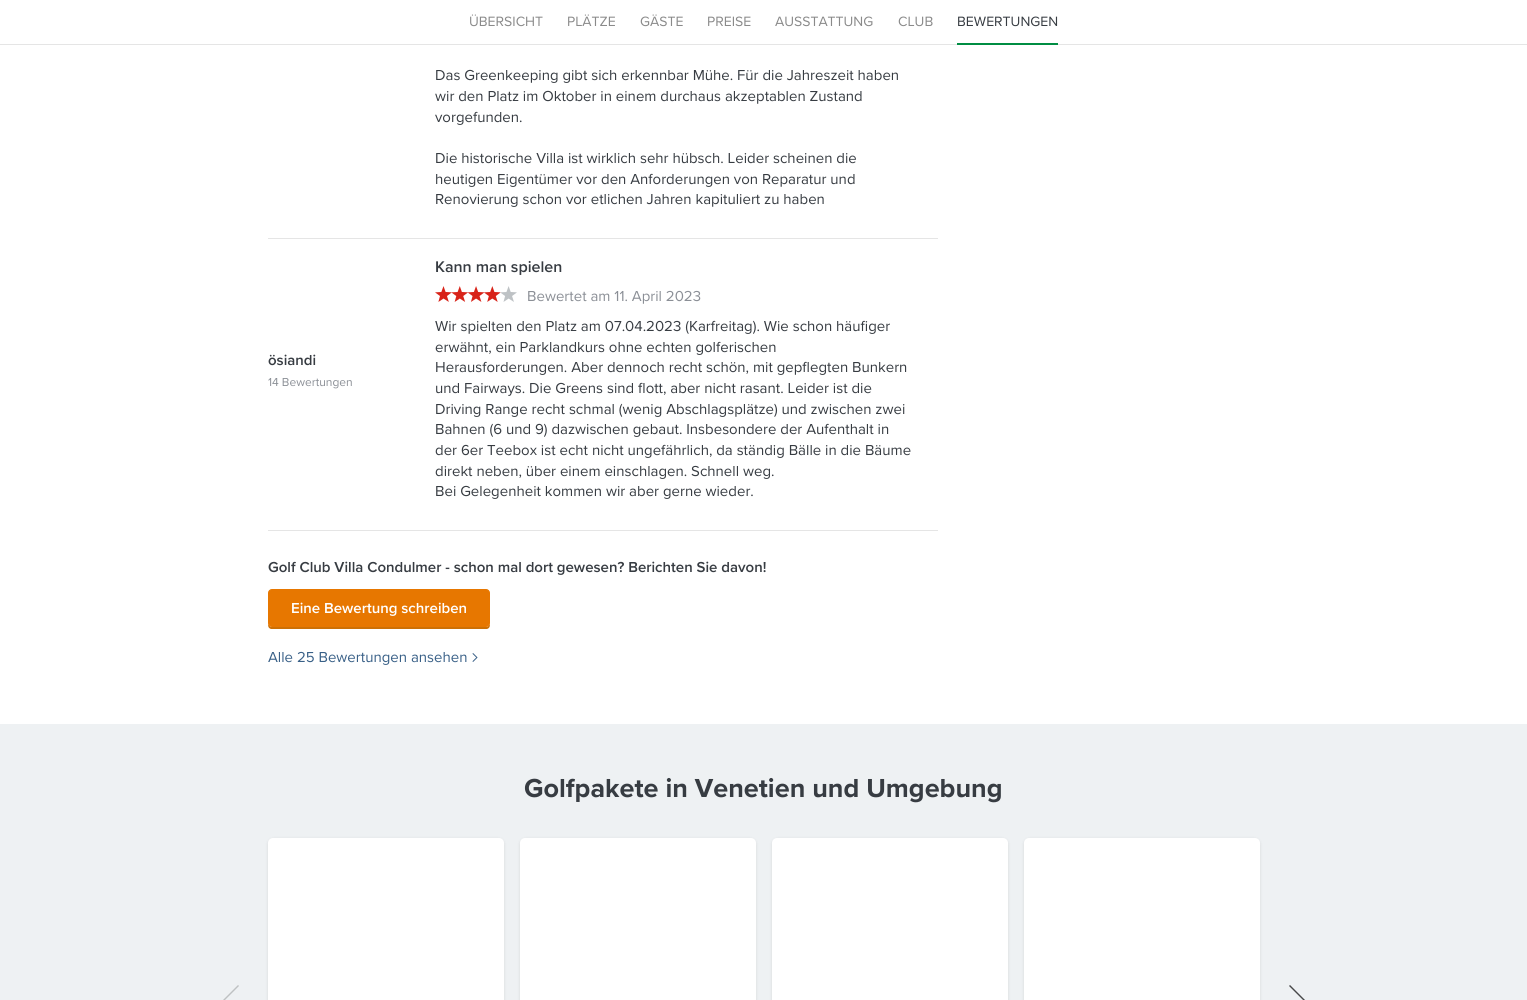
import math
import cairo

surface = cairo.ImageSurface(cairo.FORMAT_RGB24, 1527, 1000)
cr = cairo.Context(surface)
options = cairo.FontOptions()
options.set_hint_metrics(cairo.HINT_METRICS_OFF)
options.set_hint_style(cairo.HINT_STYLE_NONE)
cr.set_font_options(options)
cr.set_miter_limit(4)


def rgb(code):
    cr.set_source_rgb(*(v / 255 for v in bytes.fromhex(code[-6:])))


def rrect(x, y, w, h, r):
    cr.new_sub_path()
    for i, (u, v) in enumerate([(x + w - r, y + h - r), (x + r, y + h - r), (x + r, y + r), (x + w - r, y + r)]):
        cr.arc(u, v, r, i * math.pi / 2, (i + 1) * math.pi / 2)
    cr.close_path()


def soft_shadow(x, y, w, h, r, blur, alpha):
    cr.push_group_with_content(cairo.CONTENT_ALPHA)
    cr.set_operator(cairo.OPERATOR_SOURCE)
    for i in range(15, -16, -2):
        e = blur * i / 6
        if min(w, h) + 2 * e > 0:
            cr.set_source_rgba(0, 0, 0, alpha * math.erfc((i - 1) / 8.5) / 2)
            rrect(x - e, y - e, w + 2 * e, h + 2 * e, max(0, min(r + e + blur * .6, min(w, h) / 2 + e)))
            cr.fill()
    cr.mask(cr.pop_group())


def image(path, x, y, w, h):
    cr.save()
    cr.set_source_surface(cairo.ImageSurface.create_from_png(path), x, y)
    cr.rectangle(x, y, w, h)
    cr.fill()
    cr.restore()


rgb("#ffffff")
cr.paint()
for x, y, w, h, color in [
    (0, 44, 1527, 1, "#e5e5e5"),
    (957, 43, 101, 2, "#008d43"),
    (268, 238, 670, 1, "#e5e5e5"),
    (268, 530, 670, 1, "#e5e5e5"),
]:
    rgb(color)
    cr.rectangle(x, y, w, h)
    cr.fill()
image("img/1.png", 435, 286, 82, 16)
rgb("#cd7005")
cr.new_path()
cr.move_to(268, 623)
cr.curve_to(268, 626, 268, 628, 271, 629)
cr.line_to(487, 629)
cr.curve_to(490, 628, 490, 626, 490, 623)
cr.curve_to(490, 625, 488, 627, 486, 627)
cr.line_to(272, 627)
cr.curve_to(270, 627, 268, 625, 268, 623)
cr.close_path()
cr.fill()
rgb("#e77700")
rrect(268.5, 589.5, 221, 37, 3.5)
cr.fill_preserve()
cr.set_line_width(1)
cr.stroke()
image("img/2.png", 472, 653, 6, 9)
rgb("#eef1f3")
cr.rectangle(0, 724, 1527, 276)
cr.fill()
rgb("#bec1c2")
cr.set_fill_rule(cairo.FILL_RULE_EVEN_ODD)
cr.new_path()
cr.move_to(239, 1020)
cr.line_to(222, 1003)
cr.line_to(239, 986)
cr.line_to(238, 985)
cr.line_to(220, 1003)
cr.line_to(238, 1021)
cr.close_path()
cr.fill()
rgb("#000000")
soft_shadow(268, 839, 236, 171, 5, 1.5, 0.1)
rgb("#ffffff")
rrect(268, 838, 236, 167, 5)
cr.fill()
rgb("#000000")
soft_shadow(520, 839, 236, 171, 5, 1.5, 0.1)
rgb("#ffffff")
rrect(520, 838, 236, 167, 5)
cr.fill()
rgb("#000000")
soft_shadow(772, 839, 236, 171, 5, 1.5, 0.1)
rgb("#ffffff")
rrect(772, 838, 236, 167, 5)
cr.fill()
rgb("#000000")
soft_shadow(1024, 839, 236, 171, 5, 1.5, 0.1)
rgb("#ffffff")
rrect(1024, 838, 236, 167, 5)
cr.fill()
rgb("#474849")
cr.new_path()
cr.move_to(1289, 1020)
cr.line_to(1306, 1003)
cr.line_to(1289, 986)
cr.line_to(1290, 985)
cr.line_to(1308, 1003)
cr.line_to(1290, 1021)
cr.close_path()
cr.fill()
cr.select_font_face("Proxima Nova")
cr.set_font_size(14)
rgb("#8a8a8a")
for x, y, s in [
    (469, 26, "ÜBERSICHT"),
    (567, 26, "PLÄTZE"),
    (640, 26, "GÄSTE"),
    (707, 26, "PREISE"),
    (775, 26, "AUSSTATTUNG"),
    (898, 26, "CLUB"),
]:
    cr.move_to(x, y)
    cr.show_text(s)
rgb("#373c42")
cr.move_to(957, 26)
cr.show_text("BEWERTUNGEN")
cr.set_font_size(15)
for x, y, s in [
    (435, 80, "Das Greenkeeping gibt sich erkennbar Mühe. Für die Jahreszeit haben"),
    (435, 101, "wir den Platz im Oktober in einem durchaus akzeptablen Zustand"),
    (435, 122, "vorgefunden."),
    (435, 163, "Die historische Villa ist wirklich sehr hübsch. Leider scheinen die"),
    (435, 184, "heutigen Eigentümer vor den Anforderungen von Reparatur und"),
    (435, 204, "Renovierung schon vor etlichen Jahren kapituliert zu haben"),
]:
    cr.move_to(x, y)
    cr.show_text(s)
cr.select_font_face("Proxima Nova SemiBold")
cr.move_to(268, 365)
cr.show_text("ösiandi")
cr.select_font_face("Proxima Nova")
cr.set_font_size(12)
rgb("#8b8f96")
cr.move_to(268, 386)
cr.show_text("14 Bewertungen")
cr.select_font_face("Proxima Nova SemiBold")
cr.set_font_size(16)
rgb("#373c42")
cr.move_to(435, 272)
cr.show_text("Kann man spielen")
cr.select_font_face("Proxima Nova")
cr.set_font_size(15)
rgb("#8b8f96")
cr.move_to(527, 301)
cr.show_text("Bewertet am 11. April 2023")
rgb("#373c42")
for x, y, s in [
    (435, 331, "Wir spielten den Platz am 07.04.2023 (Karfreitag). Wie schon häufiger"),
    (435, 352, "erwähnt, ein Parklandkurs ohne echten golferischen"),
    (435, 372, "Herausforderungen. Aber dennoch recht schön, mit gepflegten Bunkern"),
    (435, 393, "und Fairways. Die Greens sind flott, aber nicht rasant. Leider ist die"),
    (435, 414, "Driving Range recht schmal (wenig Abschlagsplätze) und zwischen zwei"),
    (435, 434, "Bahnen (6 und 9) dazwischen gebaut. Insbesondere der Aufenthalt in"),
    (435, 455, "der 6er Teebox ist echt nicht ungefährlich, da ständig Bälle in die Bäume"),
    (435, 476, "direkt neben, über einem einschlagen. Schnell weg."),
    (435, 496, "Bei Gelegenheit kommen wir aber gerne wieder."),
]:
    cr.move_to(x, y)
    cr.show_text(s)
cr.select_font_face("Proxima Nova SemiBold")
cr.move_to(268, 572)
cr.show_text("Golf Club Villa Condulmer - schon mal dort gewesen? Berichten Sie davon!")
rgb("#ffffff")
cr.move_to(291, 613)
cr.show_text("Eine Bewertung schreiben")
cr.select_font_face("Proxima Nova")
rgb("#396087")
cr.move_to(268, 662)
cr.show_text("Alle 25 Bewertungen ansehen")
cr.select_font_face("Proxima Nova", cairo.FONT_SLANT_NORMAL, cairo.FONT_WEIGHT_BOLD)
cr.set_font_size(27)
rgb("#373c42")
cr.move_to(524, 797)
cr.show_text("Golfpakete in Venetien und Umgebung")
surface.write_to_png("page.png")
